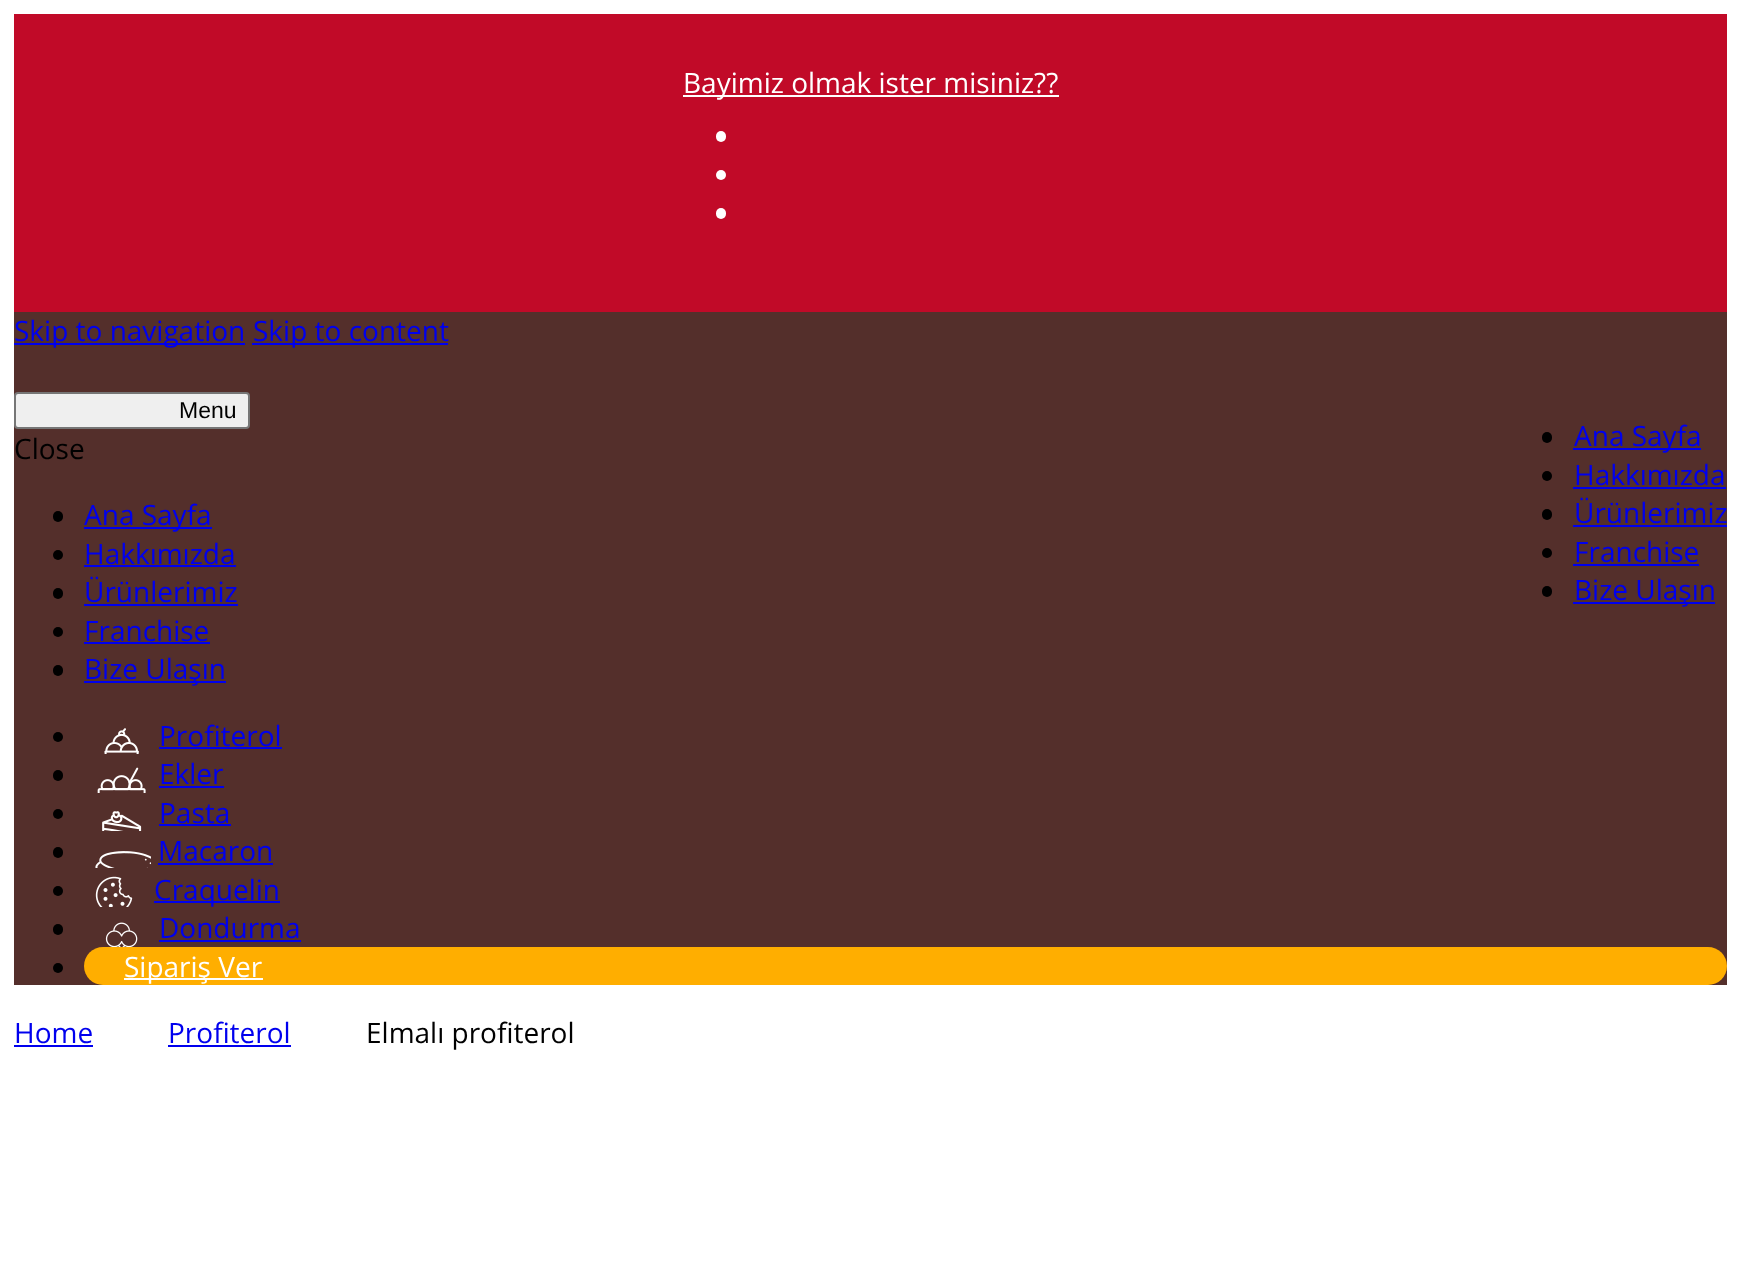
<svg xmlns="http://www.w3.org/2000/svg" width="1740" height="1273">
<rect width="100%" height="100%" fill="#fff"/>
<rect x="14" y="14" width="1713" height="298" fill="#c10a28"/>
<rect x="683" y="95" width="376" height="2" fill="#fff"/>
<text x="683" y="93" style="font-family:Open Sans;font-size:28px;fill:#fff">Bayimiz olmak ister misiniz??</text>
<rect x="716" y="131" width="10" height="11" rx="5" fill="#fff"/>
<circle cx="721" cy="175" r="5" fill="#fff"/>
<rect x="716" y="208" width="10" height="11" rx="5" fill="#fff"/>
<rect x="14" y="312" width="1713" height="673" fill="#542f2b"/>
<rect x="14" y="343" width="231" height="2" fill="#00e"/>
<text x="14" y="341" style="font-family:Open Sans;font-size:28px;fill:#00e">Skip to navigation</text>
<rect x="252" y="343" width="196" height="2" fill="#00e"/>
<text x="253" y="341" style="font-family:Open Sans;font-size:28px;fill:#00e">Skip to content</text>
<rect x="15" y="393" width="234" height="35" rx="3" fill="#efefef" stroke="#767676" stroke-width="2"/>
<text x="179" y="418" style="font-family:Liberation Sans;font-size:23px;fill:#000">Menu</text>
<text x="14" y="459" style="font-family:Open Sans;font-size:28px;fill:#000">Close</text>
<rect x="53" y="511" width="10" height="11" rx="5" fill="#000"/>
<rect x="84" y="527" width="128" height="2" fill="#00e"/>
<text x="84" y="525" style="font-family:Open Sans;font-size:28px;fill:#00e">Ana Sayfa</text>
<circle cx="58" cy="555" r="5" fill="#000"/>
<text x="84" y="564" style="font-family:Open Sans;font-size:28px;fill:#00e">Hakkımızda</text>
<rect x="84" y="565" width="152" height="2" fill="#00e"/>
<rect x="53" y="588" width="10" height="11" rx="5" fill="#000"/>
<text x="84" y="602" style="font-family:Open Sans;font-size:28px;fill:#00e">Ürünlerimiz</text>
<rect x="84" y="604" width="154" height="2" fill="#00e"/>
<circle cx="58" cy="632" r="5" fill="#000"/>
<text x="84" y="641" style="font-family:Open Sans;font-size:28px;fill:#00e">Franchise</text>
<rect x="84" y="642" width="126" height="2" fill="#00e"/>
<rect x="53" y="665" width="10" height="11" rx="5" fill="#000"/>
<rect x="84" y="681" width="142" height="2" fill="#00e"/>
<text x="84" y="679" style="font-family:Open Sans;font-size:28px;fill:#00e">Bize Ulaşın</text>
<rect x="1542" y="432" width="10" height="11" rx="5" fill="#000"/>
<rect x="1573" y="448" width="128" height="2" fill="#00e"/>
<text x="1574" y="446" style="font-family:Open Sans;font-size:28px;fill:#00e">Ana Sayfa</text>
<circle cx="1547" cy="476" r="5" fill="#000"/>
<text x="1574" y="485" style="font-family:Open Sans;font-size:28px;fill:#00e">Hakkımızda</text>
<rect x="1573" y="487" width="153" height="2" fill="#00e"/>
<rect x="1542" y="509" width="10" height="11" rx="5" fill="#000"/>
<text x="1574" y="523" style="font-family:Open Sans;font-size:28px;fill:#00e">Ürünlerimiz</text>
<rect x="1573" y="525" width="154" height="2" fill="#00e"/>
<circle cx="1547" cy="553" r="5" fill="#000"/>
<text x="1574" y="562" style="font-family:Open Sans;font-size:28px;fill:#00e">Franchise</text>
<rect x="1573" y="564" width="126" height="2" fill="#00e"/>
<rect x="1542" y="586" width="10" height="11" rx="5" fill="#000"/>
<rect x="1573" y="602" width="142" height="2" fill="#00e"/>
<text x="1574" y="600" style="font-family:Open Sans;font-size:28px;fill:#00e">Bize Ulaşın</text>
<circle cx="58" cy="737" r="5" fill="#000"/>
<image x="104" y="728" width="35" height="26" href="media/1.png"/>
<text x="159" y="746" style="font-family:Open Sans;font-size:28px;fill:#00e">Profiterol</text>
<rect x="159" y="747" width="123" height="2" fill="#00e"/>
<rect x="53" y="770" width="10" height="11" rx="5" fill="#000"/>
<image x="97" y="767" width="49" height="26" href="media/2.png"/>
<text x="159" y="784" style="font-family:Open Sans;font-size:28px;fill:#00e">Ekler</text>
<rect x="159" y="786" width="65" height="2" fill="#00e"/>
<circle cx="58" cy="814" r="5" fill="#000"/>
<image x="102" y="811" width="40" height="20" href="media/3.png"/>
<text x="159" y="823" style="font-family:Open Sans;font-size:28px;fill:#00e">Pasta</text>
<rect x="159" y="824" width="72" height="2" fill="#00e"/>
<rect x="53" y="847" width="10" height="11" rx="5" fill="#000"/>
<image x="95" y="851" width="56" height="17" href="media/4.png"/>
<text x="158" y="861" style="font-family:Open Sans;font-size:28px;fill:#00e">Macaron</text>
<rect x="158" y="863" width="115" height="2" fill="#00e"/>
<circle cx="58" cy="891" r="5" fill="#000"/>
<image x="95" y="876" width="38" height="31" href="media/5.png"/>
<rect x="154" y="901" width="126" height="2" fill="#00e"/>
<text x="154" y="900" style="font-family:Open Sans;font-size:28px;fill:#00e">Craquelin</text>
<rect x="53" y="924" width="10" height="11" rx="5" fill="#000"/>
<image x="105" y="922" width="33" height="25" href="media/6.png"/>
<text x="159" y="938" style="font-family:Open Sans;font-size:28px;fill:#00e">Dondurma</text>
<rect x="159" y="940" width="142" height="2" fill="#00e"/>
<rect x="84" y="947" width="1643" height="38" rx="19" fill="#ffae00"/>
<circle cx="58" cy="968" r="5" fill="#000"/>
<rect x="124" y="978" width="139" height="2" fill="#fff"/>
<text x="124" y="977" style="font-family:Open Sans;font-size:28px;fill:#fff">Sipariş Ver</text>
<text x="14" y="1043" style="font-family:Open Sans;font-size:28px;fill:#00e">Home</text>
<rect x="14" y="1045" width="79" height="2" fill="#00e"/>
<text x="168" y="1043" style="font-family:Open Sans;font-size:28px;fill:#00e">Profiterol</text>
<rect x="168" y="1045" width="123" height="2" fill="#00e"/>
<text x="366" y="1043" style="font-family:Open Sans;font-size:28px;fill:#000">Elmalı profiterol</text>
</svg>
